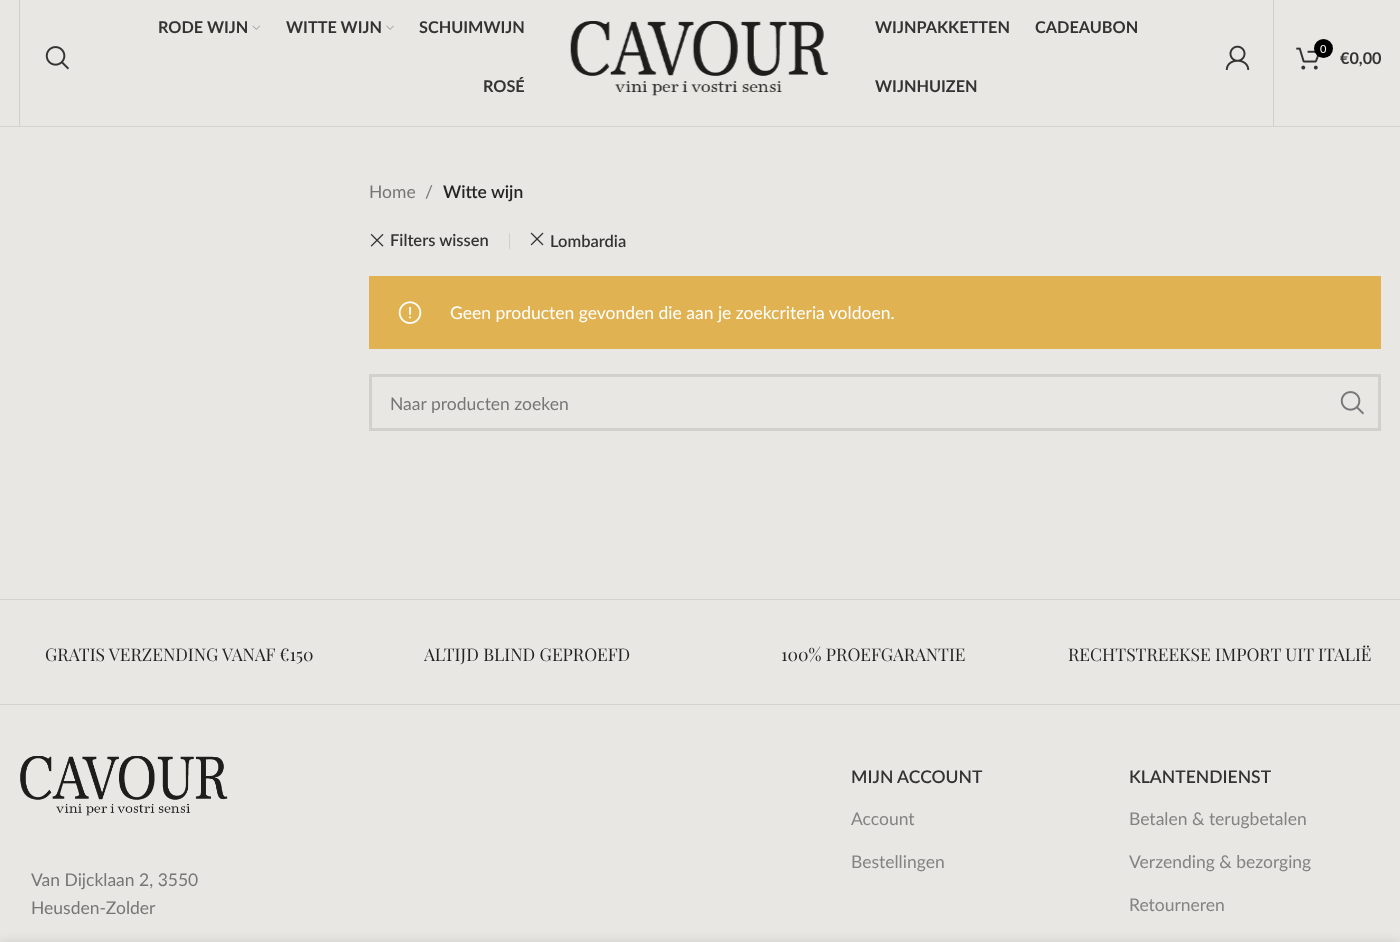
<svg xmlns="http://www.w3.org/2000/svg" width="1400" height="942">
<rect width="100%" height="100%" fill="#e8e7e4"/>
<rect y="126" width="1400" height="1" fill="#d3d3d0"/>
<rect x="19" width="1" height="126" fill="#cfcfcc"/>
<image x="45" y="46" width="24" height="24" href="media/1.png"/>
<text x="158" y="33" style="font-family:Lato;font-size:16.25px;font-weight:bold;fill:#333">RODE WIJN</text>
<image x="252" y="25" width="8" height="5" href="media/2.png"/>
<text x="286" y="33" style="font-family:Lato;font-size:16.25px;font-weight:bold;fill:#333">WITTE WIJN</text>
<image x="386" y="25" width="8" height="5" href="media/3.png"/>
<text x="419" y="33" style="font-family:Lato;font-size:16.25px;font-weight:bold;fill:#333">SCHUIMWIJN</text>
<text x="483" y="92" style="font-family:Lato;font-size:16.25px;font-weight:bold;fill:#333">ROSÉ</text>
<image x="570" y="21" width="259" height="75" href="media/4.png"/>
<text x="875" y="33" style="font-family:Lato;font-size:16.25px;font-weight:bold;fill:#333">WIJNPAKKETTEN</text>
<text x="1035" y="33" style="font-family:Lato;font-size:16.25px;font-weight:bold;fill:#333">CADEAUBON</text>
<text x="875" y="92" style="font-family:Lato;font-size:16.25px;font-weight:bold;fill:#333">WIJNHUIZEN</text>
<image x="1225" y="45" width="25" height="25" href="media/5.png"/>
<rect x="1273" width="1" height="126" fill="#cfcfcc"/>
<image x="1296" y="47" width="23" height="23" href="media/6.png"/>
<circle cx="1323.5" cy="48.5" r="9.5" fill="#000"/>
<text x="1320" y="53" style="font-family:Lato;font-size:11px;fill:#fff">0</text>
<text x="1340" y="64" style="font-family:Lato;font-size:16.25px;font-weight:bold;fill:#333">€0,00</text>
<text x="369" y="198" style="font-family:Lato;font-size:17.5px;fill:#767676">Home</text>
<text x="425" y="198" style="font-family:Lato;font-size:17.5px;fill:#767676">/</text>
<text x="443" y="198" style="font-family:Lato;font-size:17.5px;font-weight:600;fill:#242424">Witte wijn</text>
<rect x="509" y="233" width="1" height="16" fill="#cfcfcc"/>
<image x="370" y="233" width="14" height="14" href="media/7.png"/>
<text x="390" y="246" style="font-family:Lato;font-size:16.5px;font-weight:600;fill:#333">Filters wissen</text>
<image x="530" y="232" width="14" height="14" href="media/8.png"/>
<text x="550" y="247" style="font-family:Lato;font-size:16.5px;font-weight:600;fill:#333">Lombardia</text>
<rect x="369" y="276" width="1012" height="73" fill="#e0b252"/>
<image x="398" y="301" width="24" height="23" href="media/9.png"/>
<text x="450" y="319" style="font-family:Lato;font-size:17.5px;fill:#fff">Geen producten gevonden die aan je zoekcriteria voldoen.</text>
<rect x="370.5" y="375.5" width="1009" height="54" fill="none" stroke="#d1d0cd" stroke-width="3"/>
<text x="390" y="410" style="font-family:Lato;font-size:17.5px;fill:#767676">Naar producten zoeken</text>
<image x="1340" y="391" width="24" height="24" href="media/10.png"/>
<rect y="599" width="1400" height="1" fill="#d3d3d0"/>
<rect y="704" width="1400" height="1" fill="#d3d3d0"/>
<text x="45" y="661" style="font-family:Playfair Display;font-size:17.5px;fill:#242424">GRATIS VERZENDING VANAF €150</text>
<text x="424" y="661" style="font-family:Playfair Display;font-size:17.5px;fill:#242424">ALTIJD BLIND GEPROEFD</text>
<text x="781" y="661" style="font-family:Playfair Display;font-size:17.5px;fill:#242424">100% PROEFGARANTIE</text>
<text x="1068" y="661" style="font-family:Playfair Display;font-size:17.5px;fill:#242424">RECHTSTREEKSE IMPORT UIT ITALIË</text>
<image x="20" y="756" width="208" height="60" href="media/11.png"/>
<text x="31" y="886" style="font-family:Lato;font-size:17.5px;fill:#767676">Van Dijcklaan 2, 3550</text>
<text x="31" y="914" style="font-family:Lato;font-size:17.5px;fill:#767676">Heusden-Zolder</text>
<text x="851" y="783" style="font-family:Lato;font-size:17.5px;font-weight:600;fill:#333">MIJN ACCOUNT</text>
<text x="851" y="825" style="font-family:Lato;font-size:17.5px;fill:#838383">Account</text>
<text x="851" y="868" style="font-family:Lato;font-size:17.5px;fill:#838383">Bestellingen</text>
<text x="1129" y="783" style="font-family:Lato;font-size:17.5px;font-weight:600;fill:#333">KLANTENDIENST</text>
<text x="1129" y="825" style="font-family:Lato;font-size:17.5px;fill:#838383">Betalen &amp; terugbetalen</text>
<text x="1129" y="868" style="font-family:Lato;font-size:17.5px;fill:#838383">Verzending &amp; bezorging</text>
<text x="1129" y="911" style="font-family:Lato;font-size:17.5px;fill:#838383">Retourneren</text>
<rect y="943" width="1400" height="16" fill="#00000024" filter="blur(5.5px)"/>
</svg>
